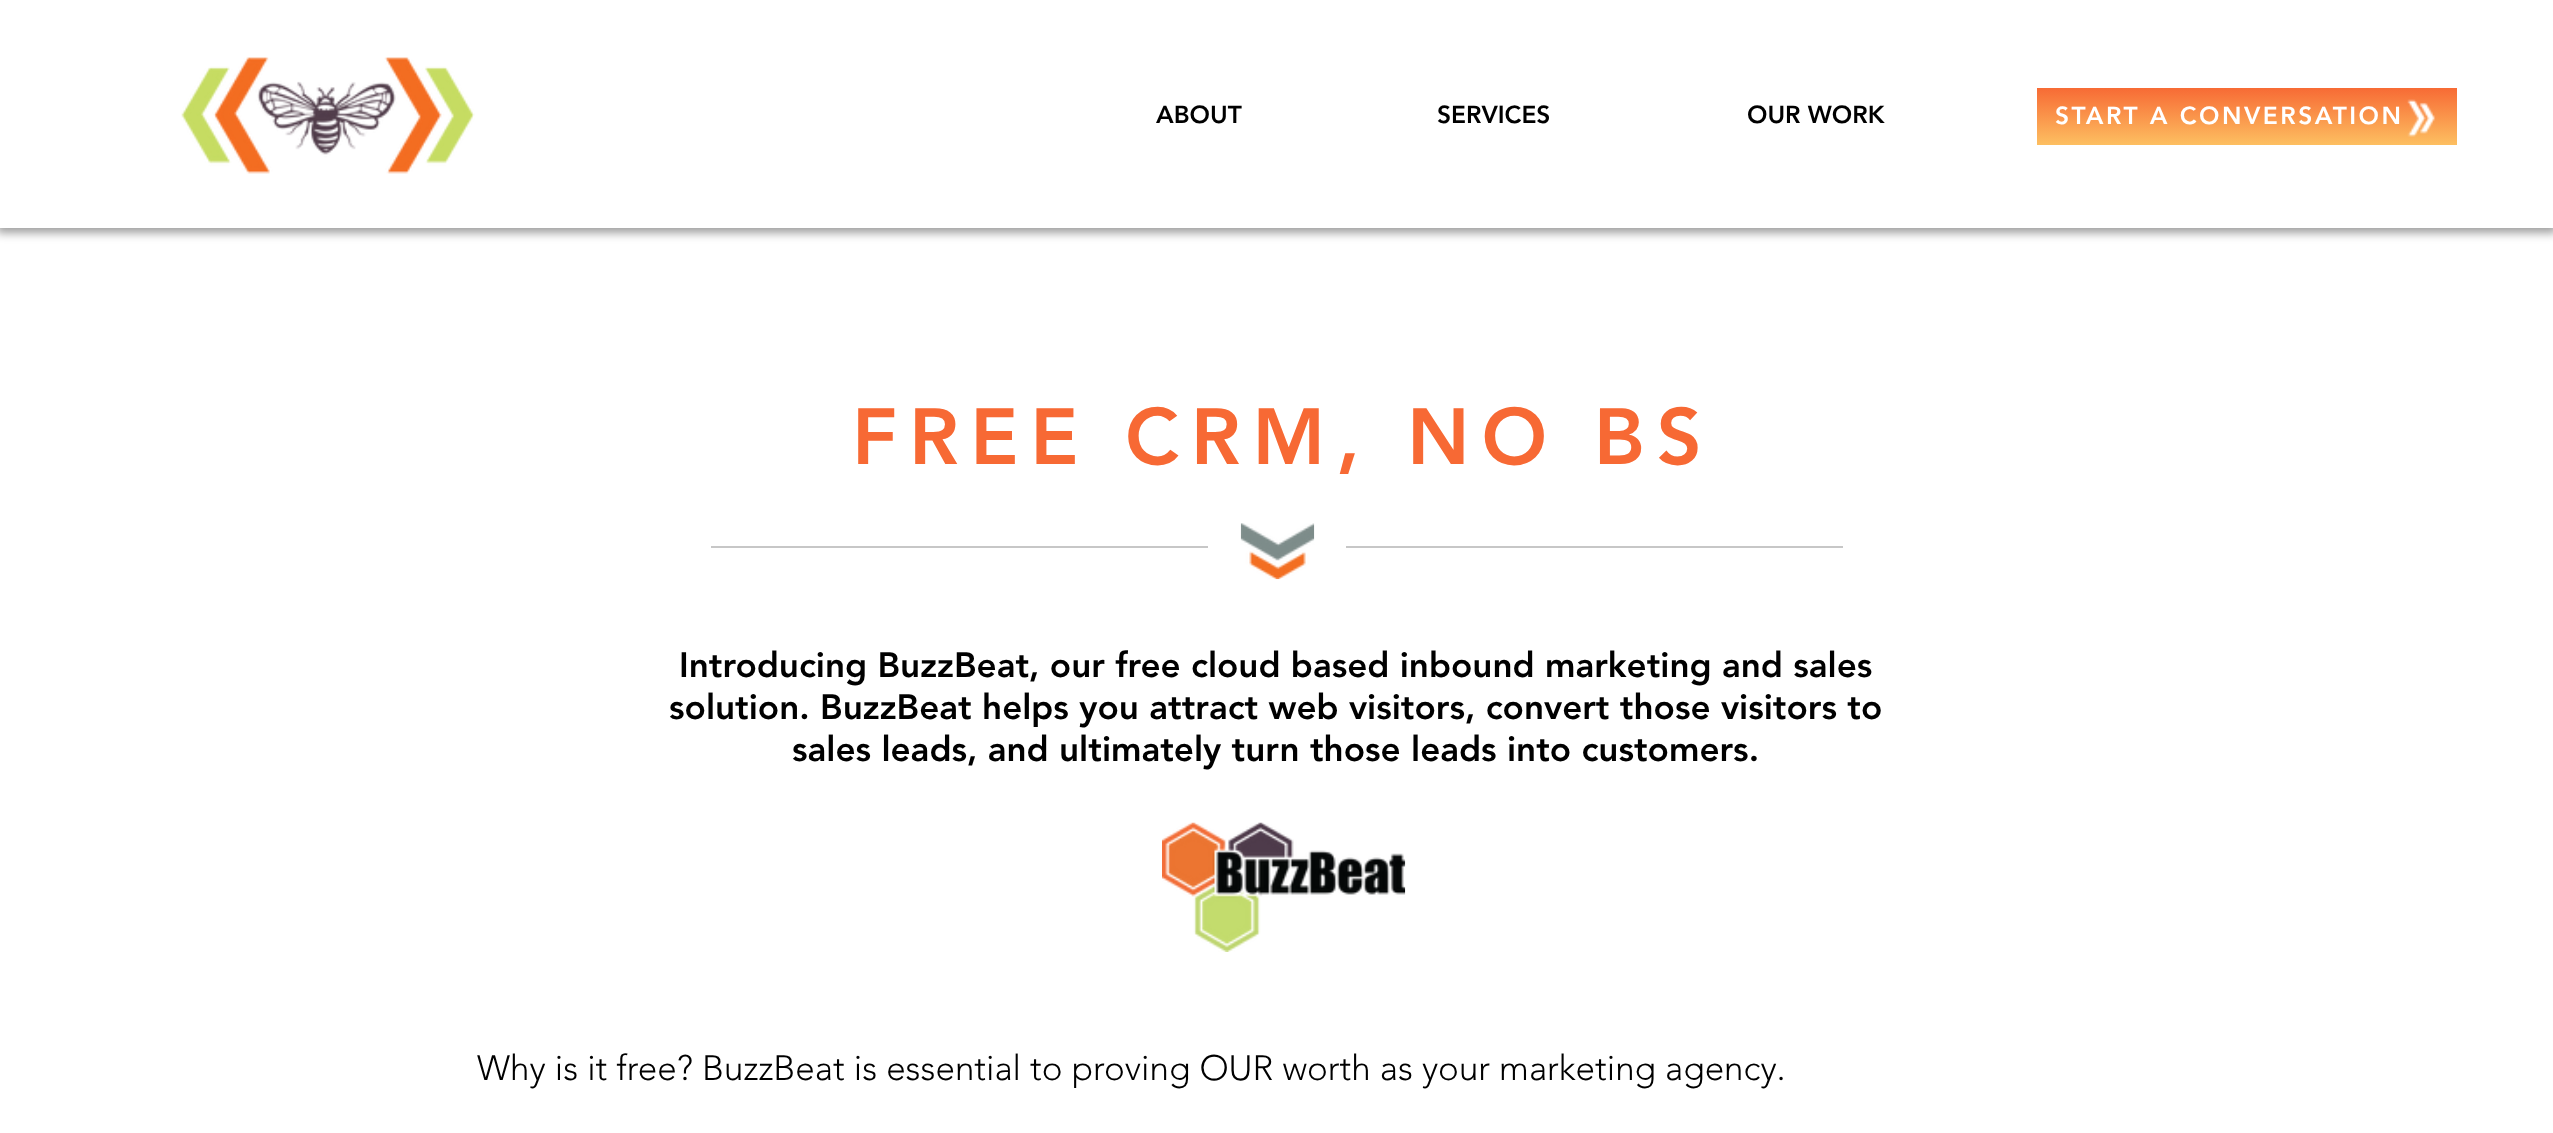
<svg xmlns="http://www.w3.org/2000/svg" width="2553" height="1133">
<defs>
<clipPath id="clip1"><path d="M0 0h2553v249h-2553zm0 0h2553v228h-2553z" clip-rule="evenodd"/></clipPath>
<linearGradient id="g1" gradientUnits="userSpaceOnUse" x1="2247" y1="87" x2="2247" y2="145"><stop offset="0" stop-color="#f76934"/><stop offset="1" stop-color="#fdbf61"/></linearGradient>
</defs>
<rect width="100%" height="100%" fill="#fff"/>
<g clip-path="url(#clip1)">
<rect x="-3" y="-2" width="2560" height="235" fill="#00000061" filter="blur(5px)"/>
</g>
<image x="181" y="57" width="294" height="117" href="media/1.png"/>
<text x="1156" y="123" style="font-family:'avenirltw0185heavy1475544';font-size:24.5px;font-weight:900;fill:#000">ABOUT</text>
<text x="1437" y="123" style="font-family:'avenirltw0185heavy1475544';font-size:24.5px;font-weight:900;fill:#000">SERVICES</text>
<text x="1747" y="123" style="font-family:'avenirltw0185heavy1475544';font-size:24.5px;font-weight:900;fill:#000">OUR WORK</text>
<rect x="2037" y="88" width="420" height="57" fill="url(#g1)"/>
<text x="2055" y="124" style="font-family:'avenirltw0185heavy1475544';font-size:24.5px;font-weight:900;letter-spacing:2.5px;fill:#fff">START A CONVERSATION</text>
<image x="2407" y="99" width="28" height="38" href="media/2.png"/>
<rect y="227" width="2553" height="1" fill="#ffffffe6"/>
<text x="852" y="464" style="font-family:'avenirltw0185heavy1475544';font-size:78.75px;font-weight:900;letter-spacing:11.75px;fill:#f76934">FREE CRM, NO BS</text>
<rect x="711" y="546" width="497" height="2" fill="#c7c7c7"/>
<image x="1240" y="523" width="75" height="57" href="media/3.png"/>
<rect x="1346" y="546" width="497" height="2" fill="#c7c7c7"/>
<text x="679" y="677" style="font-family:'avenirltw0185heavy1475544';font-size:35px;font-weight:900;fill:#000">Introducing BuzzBeat, our free cloud based inbound marketing and sales</text>
<text x="669" y="719" style="font-family:'avenirltw0185heavy1475544';font-size:35px;font-weight:900;fill:#000">solution. BuzzBeat helps you attract web visitors, convert those visitors to</text>
<text x="792" y="761" style="font-family:'avenirltw0185heavy1475544';font-size:35px;font-weight:900;fill:#000">sales leads, and ultimately turn those leads into customers.</text>
<image x="1162" y="822" width="244" height="130" href="media/4.png"/>
<text x="477" y="1080" style="font-family:'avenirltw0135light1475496';font-size:35px;font-weight:300;fill:#000">Why is it free? BuzzBeat is essential to proving OUR worth as your marketing agency.</text>
</svg>
